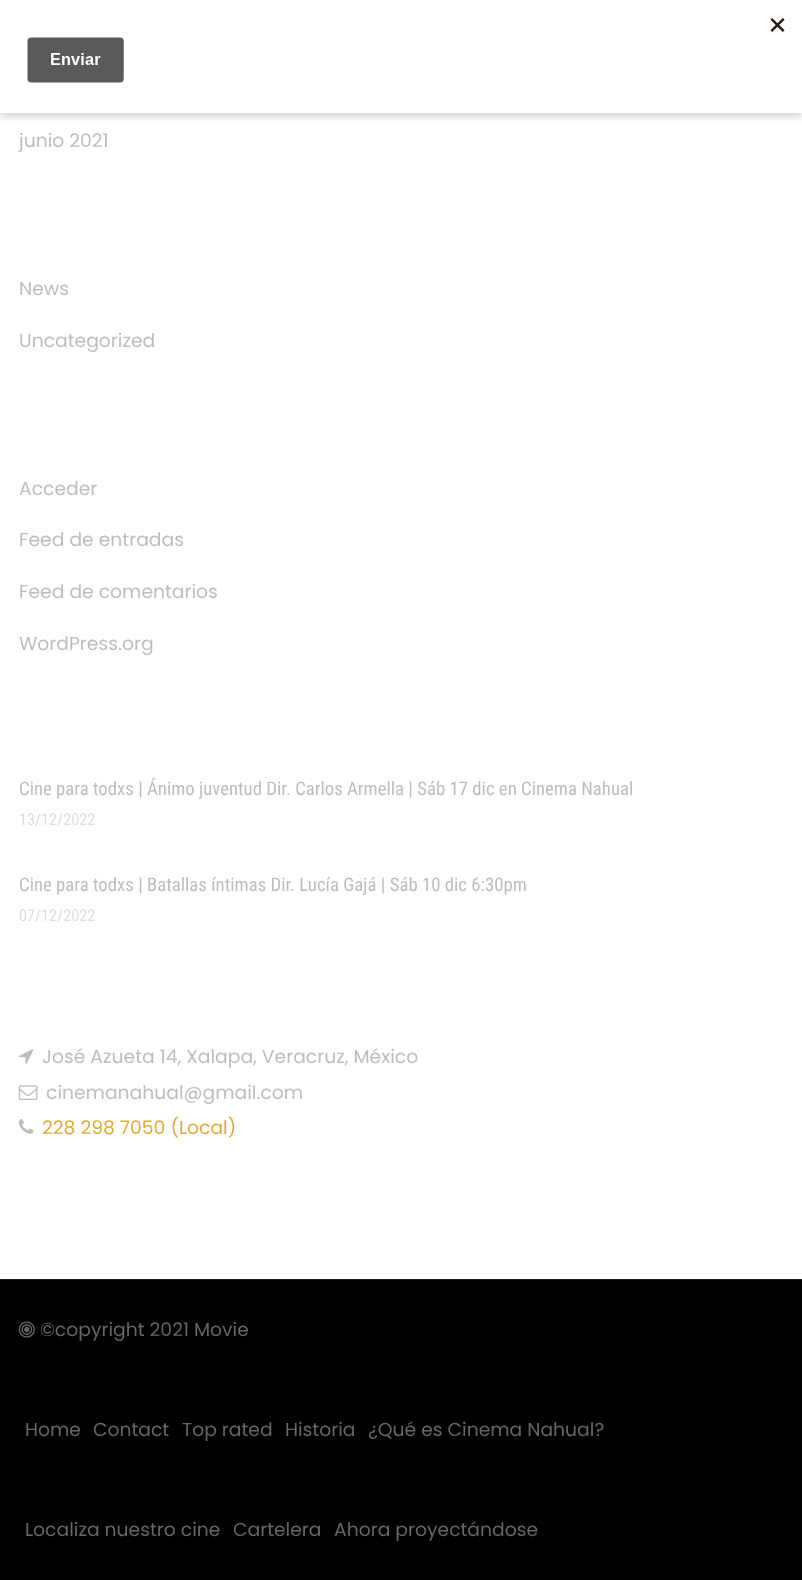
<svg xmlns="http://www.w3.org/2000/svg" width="802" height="1580">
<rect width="100%" height="100%" fill="#fff"/>
<rect y="4" width="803" height="112" fill="#00000033" filter="blur(4px)"/>
<rect width="802" height="113" fill="#fff"/>
<image x="27" y="18" width="758" height="65" href="media/1.png"/>
<text x="19" y="147" style="font-family:Poppins;font-size:18.75px;fill:#bdbdbd">junio 2021</text>
<text x="19" y="295" style="font-family:Poppins;font-size:18.75px;fill:#bdbdbd">News</text>
<text x="19" y="347" style="font-family:Poppins;font-size:18.75px;fill:#bdbdbd">Uncategorized</text>
<text x="19" y="495" style="font-family:Poppins;font-size:18.75px;fill:#bdbdbd">Acceder</text>
<text x="19" y="546" style="font-family:Poppins;font-size:18.75px;fill:#bdbdbd">Feed de entradas</text>
<text x="19" y="598" style="font-family:Poppins;font-size:18.75px;fill:#bdbdbd">Feed de comentarios</text>
<text x="19" y="650" style="font-family:Poppins;font-size:18.75px;fill:#bdbdbd">WordPress.org</text>
<text x="19" y="795" style="font-family:Roboto Condensed;font-size:18.75px;fill:#bdbdbd">Cine para todxs | Ánimo juventud Dir. Carlos Armella | Sáb 17 dic en Cinema Nahual</text>
<text x="19" y="825" style="font-family:Roboto Condensed;font-size:16.25px;fill:#ddd">13/12/2022</text>
<text x="19" y="891" style="font-family:Roboto Condensed;font-size:18.75px;fill:#bdbdbd">Cine para todxs | Batallas íntimas Dir. Lucía Gajá | Sáb 10 dic 6:30pm</text>
<text x="19" y="921" style="font-family:Roboto Condensed;font-size:16.25px;fill:#ddd">07/12/2022</text>
<image x="18" y="1049" width="16" height="15" href="media/2.png"/>
<text x="42" y="1063" style="font-family:Poppins;font-size:18.75px;fill:#bdbdbd">José Azueta 14, Xalapa, Veracruz, México</text>
<image x="18" y="1085" width="20" height="16" href="media/3.png"/>
<text x="46" y="1099" style="font-family:Poppins;font-size:18.75px;fill:#bdbdbd">cinemanahual@gmail.com</text>
<image x="18" y="1119" width="16" height="15" href="media/4.png"/>
<text x="42" y="1134" style="font-family:Poppins;font-size:18.75px;fill:#e5aa34">228 298 7050 (Local)</text>
<rect y="1280" width="802" height="300" fill="#000"/>
<rect y="1279" width="802" height="1" fill="#1a1a1a"/>
<image x="18" y="1321" width="17" height="17" href="media/5.png"/>
<text x="40" y="1336" style="font-family:Poppins;font-size:18.75px;fill:#666">©copyright 2021 Movie</text>
<text x="25" y="1436" style="font-family:Poppins;font-size:18.75px;fill:#666">Home</text>
<text x="93" y="1436" style="font-family:Poppins;font-size:18.75px;fill:#666">Contact</text>
<text x="182" y="1436" style="font-family:Poppins;font-size:18.75px;fill:#666">Top rated</text>
<text x="285" y="1436" style="font-family:Poppins;font-size:18.75px;fill:#666">Historia</text>
<text x="368" y="1436" style="font-family:Poppins;font-size:18.75px;fill:#666">¿Qué es Cinema Nahual?</text>
<text x="25" y="1536" style="font-family:Poppins;font-size:18.75px;fill:#666">Localiza nuestro cine</text>
<text x="233" y="1536" style="font-family:Poppins;font-size:18.75px;fill:#666">Cartelera</text>
<text x="334" y="1536" style="font-family:Poppins;font-size:18.75px;fill:#666">Ahora proyectándose</text>
</svg>
